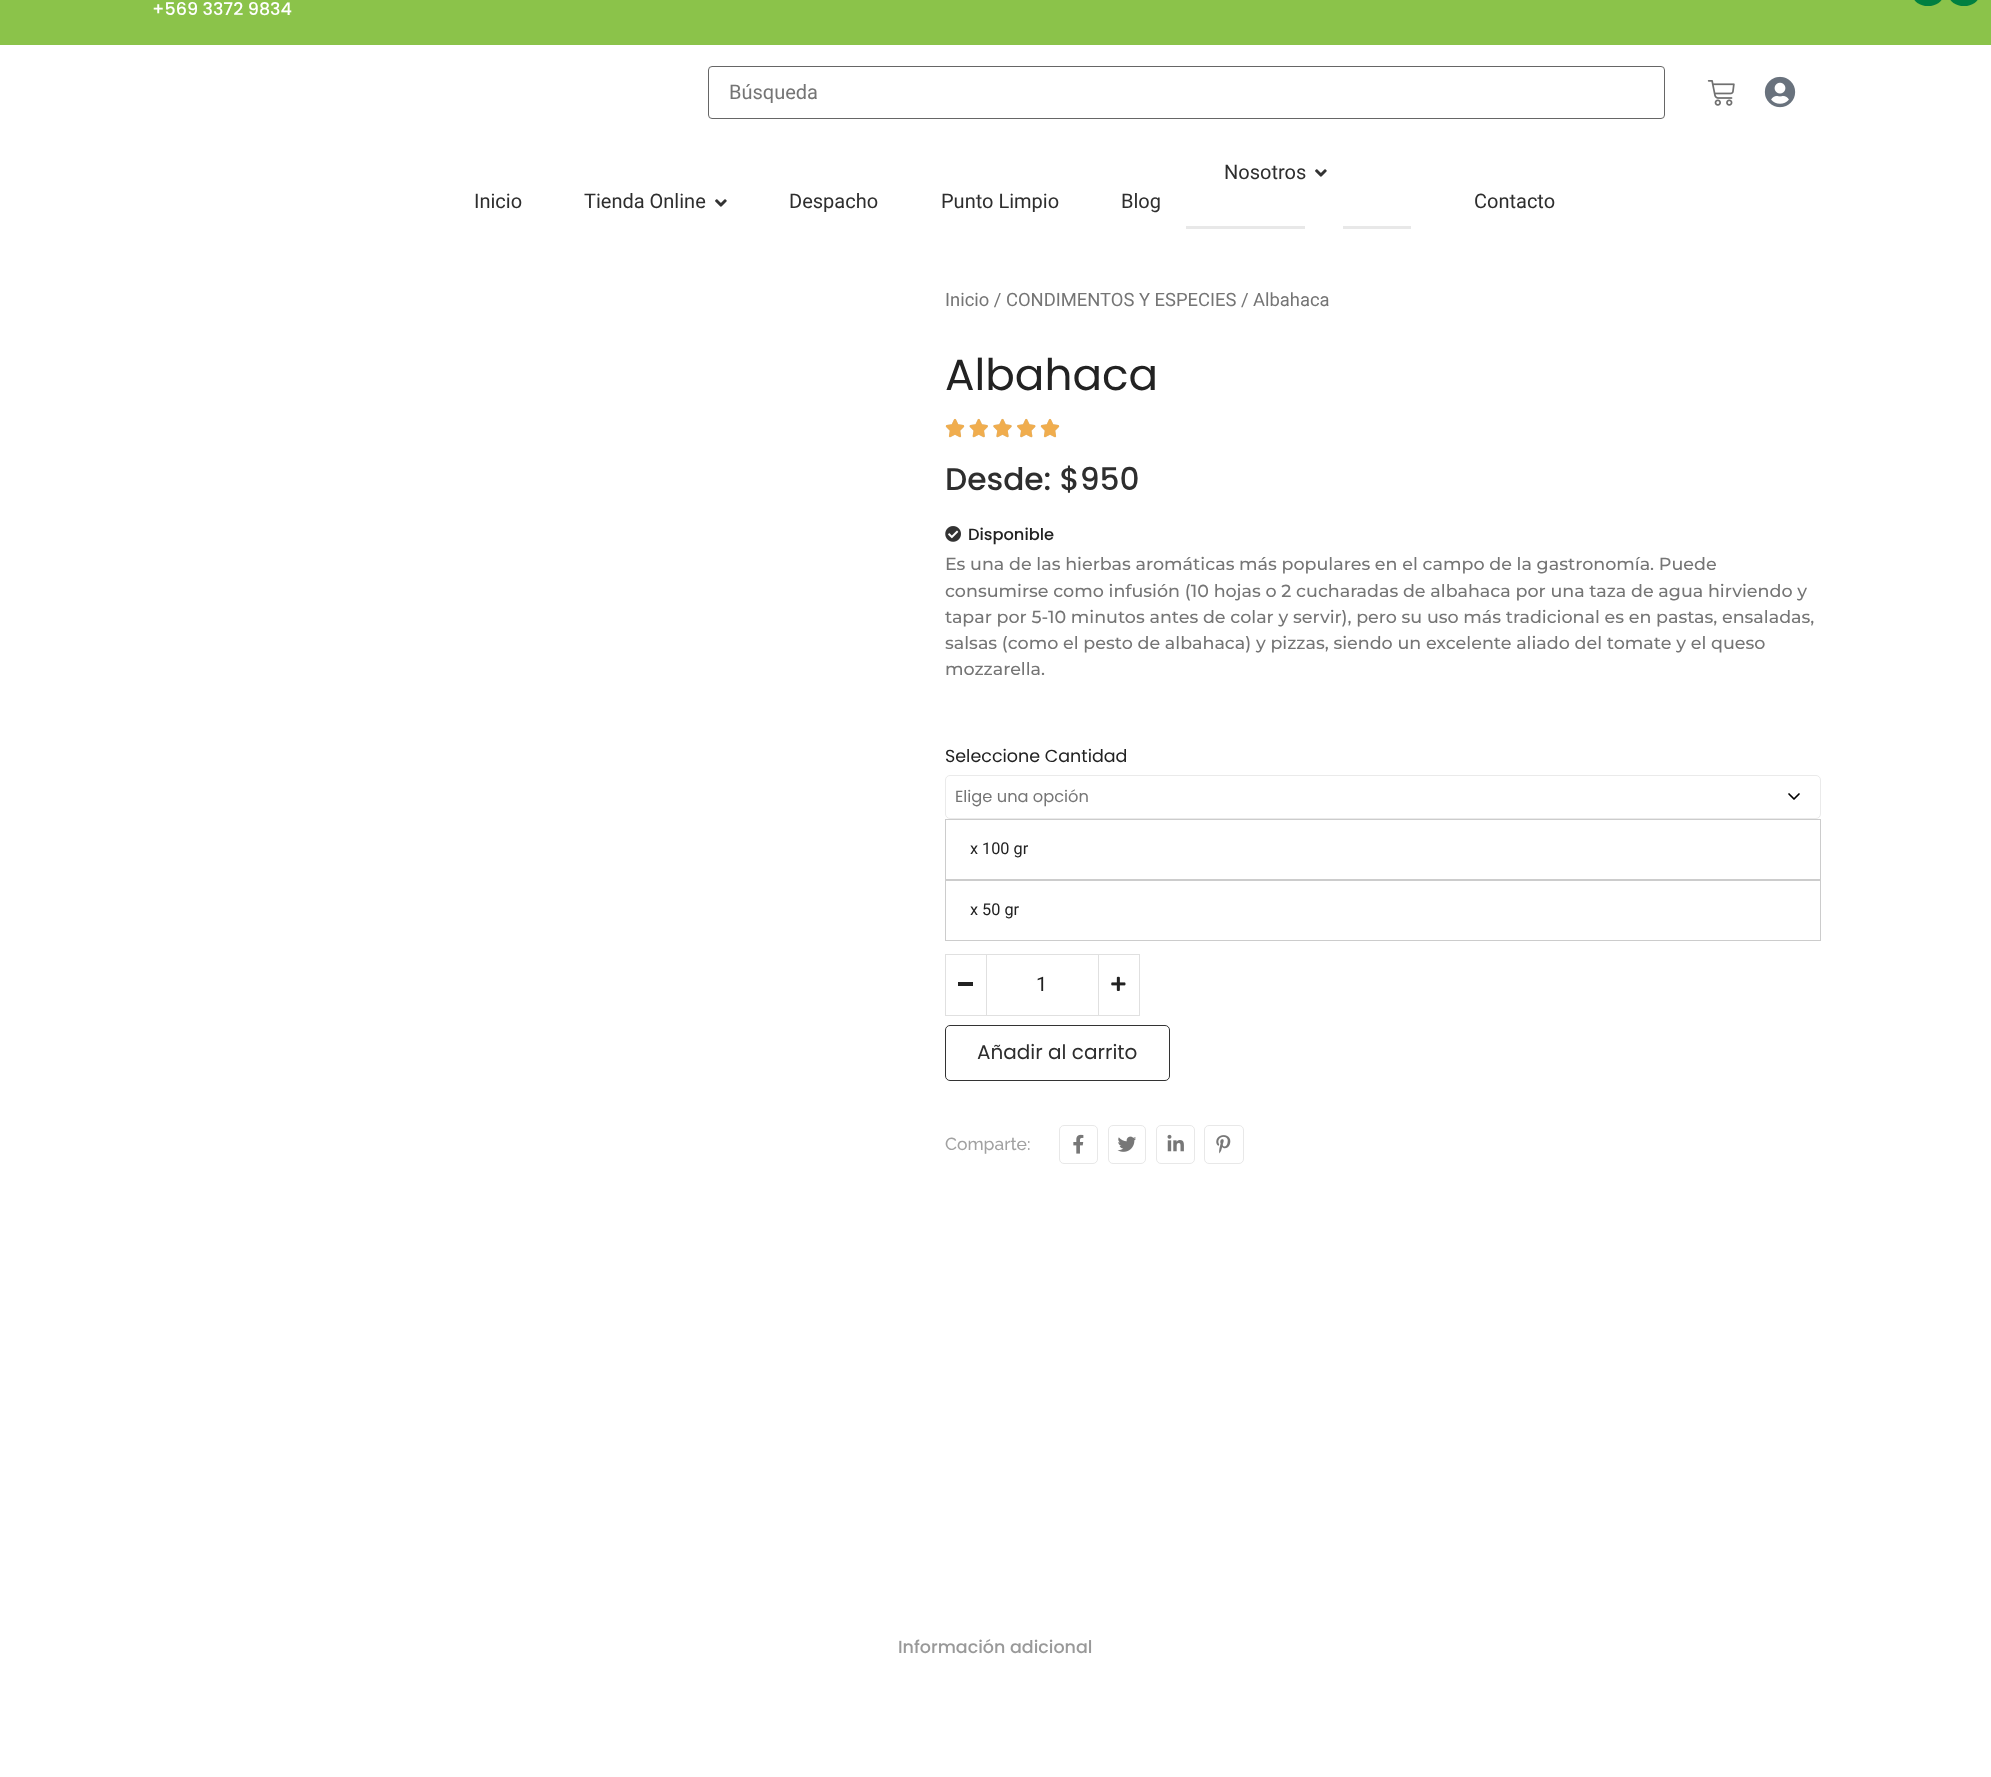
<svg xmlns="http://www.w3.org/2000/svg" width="1991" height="1777">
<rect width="100%" height="100%" fill="#fff"/>
<rect width="1991" height="45" fill="#8bc34a"/>
<rect x="1913" y="-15" width="30" height="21" rx="15" fill="#008041"/>
<rect x="1949" y="-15" width="30" height="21" rx="15" fill="#008041"/>
<text x="152" y="15" style="font-family:Poppins;font-size:17.5px;font-weight:500;fill:#fff">+569 3372 9834</text>
<rect x="708.5" y="66.5" width="956" height="52" rx="3.5" fill="none" stroke="#666"/>
<text x="729" y="99" style="font-family:Roboto;font-size:20px;fill:#757575">Búsqueda</text>
<image x="1707" y="80" width="28" height="26" href="media/1.png"/>
<image x="1764" y="76" width="32" height="32" href="media/2.png"/>
<text x="1224" y="179" style="font-family:Roboto;font-size:20px;fill:#2e2e2e">Nosotros</text>
<image x="1315" y="169" width="12" height="8" href="media/3.png"/>
<rect x="1186" y="226" width="225" height="3" fill="#e8e8e8"/>
<rect x="1305" y="226" width="38" height="3" fill="#fff"/>
<text x="474" y="208" style="font-family:Roboto;font-size:20px;fill:#2e2e2e">Inicio</text>
<text x="584" y="208" style="font-family:Roboto;font-size:20px;fill:#2e2e2e">Tienda Online</text>
<image x="715" y="199" width="12" height="8" href="media/3.png"/>
<text x="789" y="208" style="font-family:Roboto;font-size:20px;fill:#2e2e2e">Despacho</text>
<text x="941" y="208" style="font-family:Roboto;font-size:20px;fill:#2e2e2e">Punto Limpio</text>
<text x="1121" y="208" style="font-family:Roboto;font-size:20px;fill:#2e2e2e">Blog</text>
<text x="1474" y="208" style="font-family:Roboto;font-size:20px;fill:#2e2e2e">Contacto</text>
<text x="945" y="306" style="font-family:Roboto;font-size:18.4px;fill:#757575">Inicio / CONDIMENTOS Y ESPECIES / Albahaca</text>
<text x="945" y="390" style="font-family:Poppins;font-size:43.75px;fill:#222">Albahaca</text>
<image x="945" y="419" width="20" height="19" href="media/5.png"/>
<image x="945" y="418" width="20" height="20" href="media/4.png"/>
<image x="969" y="419" width="19" height="19" href="media/7.png"/>
<image x="969" y="418" width="19" height="20" href="media/6.png"/>
<image x="993" y="419" width="19" height="19" href="media/9.png"/>
<image x="993" y="418" width="19" height="20" href="media/8.png"/>
<image x="1017" y="419" width="19" height="19" href="media/11.png"/>
<image x="1017" y="418" width="19" height="20" href="media/10.png"/>
<image x="1040" y="419" width="20" height="19" href="media/5.png"/>
<image x="1040" y="418" width="20" height="20" href="media/4.png"/>
<text x="945" y="490" style="font-family:Poppins;font-size:31.25px;font-weight:500;fill:#2e2e2e">Desde: $950</text>
<image x="945" y="526" width="16" height="16" href="media/12.png"/>
<text x="968" y="540" style="font-family:Poppins;font-size:16.25px;font-weight:500;fill:#222">Disponible</text>
<text x="945" y="570" style="font-family:Montserrat;font-size:17.5px;font-weight:500;fill:#757575">Es una de las hierbas aromáticas más populares en el campo de la gastronomía. Puede</text>
<text x="945" y="597" style="font-family:Montserrat;font-size:17.5px;font-weight:500;fill:#757575">consumirse como infusión (10 hojas o 2 cucharadas de albahaca por una taza de agua hirviendo y</text>
<text x="945" y="623" style="font-family:Montserrat;font-size:17.5px;font-weight:500;fill:#757575">tapar por 5-10 minutos antes de colar y servir), pero su uso más tradicional es en pastas, ensaladas,</text>
<text x="945" y="649" style="font-family:Montserrat;font-size:17.5px;font-weight:500;fill:#757575">salsas (como el pesto de albahaca) y pizzas, siendo un excelente aliado del tomate y el queso</text>
<text x="945" y="675" style="font-family:Montserrat;font-size:17.5px;font-weight:500;fill:#757575">mozzarella.</text>
<text x="945" y="762" style="font-family:Poppins;font-size:17.5px;fill:#222">Seleccione Cantidad</text>
<path d="M1789 794l5 5l5-5" fill="none" stroke="#000" stroke-width="1.7" stroke-linecap="round" stroke-linejoin="round"/>
<rect x="945.5" y="775.5" width="875" height="43" rx="4.5" fill="none" stroke="#eaeaea"/>
<text x="955" y="802" style="font-family:Poppins;font-size:16.25px;fill:#757575">Elige una opción</text>
<rect x="945.5" y="819.5" width="875" height="60" fill="none" stroke="#ccc"/>
<text x="970" y="854" style="font-family:Roboto;font-size:16.25px;fill:#222">x 100 gr</text>
<rect x="945.5" y="880.5" width="875" height="60" fill="none" stroke="#ccc"/>
<text x="970" y="915" style="font-family:Roboto;font-size:16.25px;fill:#222">x 50 gr</text>
<rect x="945" y="954" width="41" height="1" fill="#e0e0e0"/>
<rect x="945" y="1015" width="41" height="1" fill="#e0e0e0"/>
<rect x="945" y="954" width="1" height="62" fill="#e0e0e0"/>
<rect x="958" y="982" width="15" height="4" fill="#222"/>
<rect x="986.5" y="954.5" width="112" height="61" fill="none" stroke="#e0e0e0"/>
<text x="1036" y="991" style="font-family:Roboto;font-size:20px;fill:#222">1</text>
<rect x="1099" y="954" width="41" height="1" fill="#e0e0e0"/>
<rect x="1139" y="954" width="1" height="62" fill="#e0e0e0"/>
<rect x="1099" y="1015" width="41" height="1" fill="#e0e0e0"/>
<image x="1111" y="976" width="15" height="15" href="media/13.png"/>
<rect x="945.5" y="1025.5" width="224" height="55" rx="4.5" fill="none" stroke="#333"/>
<text x="977" y="1059" style="font-family:Poppins;font-size:20px;fill:#2e2e2e">Añadir al carrito</text>
<text x="945" y="1150" style="font-family:Raleway;font-size:17.5px;font-weight:500;fill:#a1a1a1">Comparte:</text>
<rect x="1059.5" y="1125.5" width="38" height="38" rx="4.5" fill="none" stroke="#e8e8e8"/>
<image x="1073" y="1134" width="11" height="20" href="media/14.png"/>
<rect x="1108.5" y="1125.5" width="37" height="38" rx="4.5" fill="none" stroke="#e8e8e8"/>
<image x="1117" y="1136" width="19" height="16" href="media/15.png"/>
<rect x="1156.5" y="1125.5" width="38" height="38" rx="4.5" fill="none" stroke="#e8e8e8"/>
<image x="1167" y="1134" width="17" height="18" href="media/16.png"/>
<rect x="1204.5" y="1125.5" width="39" height="38" rx="4.5" fill="none" stroke="#e8e8e8"/>
<image x="1216" y="1135" width="15" height="19" href="media/17.png"/>
<text x="898" y="1653" style="font-family:Poppins;font-size:17.5px;font-weight:500;fill:#999">Información adicional</text>
</svg>
